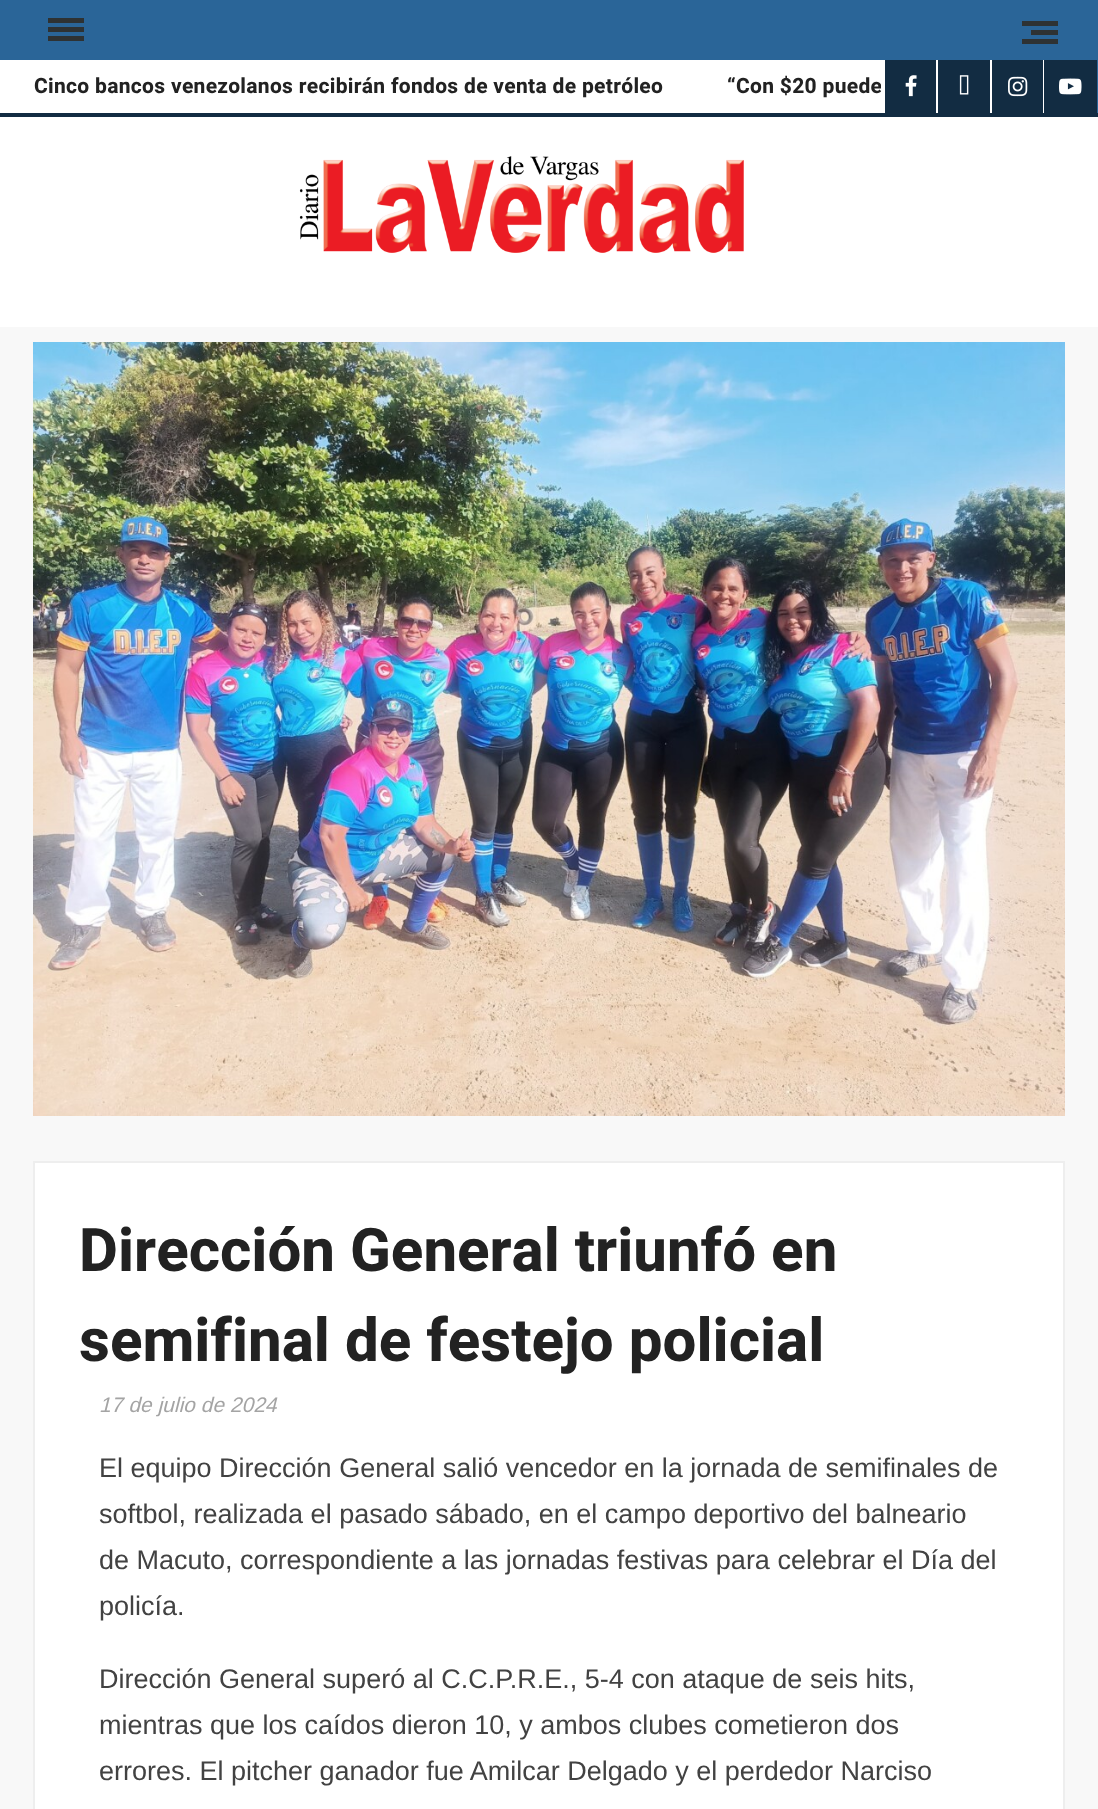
<svg xmlns="http://www.w3.org/2000/svg" width="1098" height="1809">
<defs>
<clipPath id="clip1"><rect y="60" width="881" height="53"/></clipPath>
</defs>
<rect width="100%" height="100%" fill="#f8f8f8"/>
<rect width="1098" height="60" fill="#2a6598"/>
<rect x="48" y="27" width="36" height="5" fill="#2e3233"/>
<rect x="48" y="18" width="36" height="5" fill="#2e3233"/>
<rect x="48" y="36" width="36" height="5" fill="#2e3233"/>
<rect x="1031" y="30" width="27" height="5" fill="#2e3233"/>
<rect x="1022" y="21" width="36" height="5" fill="#2e3233"/>
<rect x="1022" y="39" width="36" height="5" fill="#2e3233"/>
<rect y="60" width="885" height="53" fill="#fff"/>
<text x="34" y="93" style="font-family:Heebo;font-size:21px;font-weight:bold;letter-spacing:0.3px;fill:#222">Cinco bancos venezolanos recibirán fondos de venta de petróleo</text>
<g clip-path="url(#clip1)">
<text x="727" y="93" style="font-family:Heebo;font-size:21px;font-weight:bold;letter-spacing:0.3px;fill:#222">“Con $20 puede</text>
</g>
<rect x="1097" y="60" width="1" height="53" fill="#2a6598"/>
<rect x="885" y="60" width="51" height="53" fill="#122c42"/>
<image x="905" y="75" width="12" height="22" href="media/1.png"/>
<rect x="936" y="60" width="2" height="53" fill="#fff"/>
<rect x="938" y="60" width="52" height="53" fill="#122c42"/>
<image x="959" y="75" width="10" height="20" href="media/2.png"/>
<rect x="990" y="60" width="2" height="53" fill="#fff"/>
<rect x="992" y="60" width="51" height="53" fill="#122c42"/>
<image x="1008" y="76" width="20" height="21" href="media/3.png"/>
<rect x="1043" y="60" width="1" height="53" fill="#fff"/>
<rect x="1044" y="60" width="53" height="53" fill="#122c42"/>
<image x="1059" y="78" width="23" height="17" href="media/4.png"/>
<rect y="113" width="1098" height="4" fill="#122c42"/>
<rect y="117" width="1098" height="210" fill="#fff"/>
<image x="299" y="156" width="445" height="97" href="media/5.png"/>
<image x="33" y="342" width="1032" height="774" href="media/6.png"/>
<rect x="34" y="1162" width="1030" height="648" fill="#fff" stroke="#eee" stroke-width="2"/>
<text x="79" y="1271" style="font-family:Heebo;font-size:60px;font-weight:bold;fill:#222">Dirección General triunfó en</text>
<text x="79" y="1361" style="font-family:Heebo;font-size:60px;font-weight:bold;fill:#222">semifinal de festejo policial</text>
<text x="99" y="1412" style="font-family:Arimo;font-size:21px;font-style:italic;fill:#a4a4a4">17 de julio de 2024</text>
<text x="99" y="1477" style="font-family:Arimo;font-size:27px;fill:#424242">El equipo Dirección General salió vencedor en la jornada de semifinales de</text>
<text x="99" y="1523" style="font-family:Arimo;font-size:27px;fill:#424242">softbol, realizada el pasado sábado, en el campo deportivo del balneario</text>
<text x="99" y="1569" style="font-family:Arimo;font-size:27px;fill:#424242">de Macuto, correspondiente a las jornadas festivas para celebrar el Día del</text>
<text x="99" y="1615" style="font-family:Arimo;font-size:27px;fill:#424242">policía.</text>
<text x="99" y="1688" style="font-family:Arimo;font-size:27px;fill:#424242">Dirección General superó al C.C.P.R.E., 5-4 con ataque de seis hits,</text>
<text x="99" y="1734" style="font-family:Arimo;font-size:27px;fill:#424242">mientras que los caídos dieron 10, y ambos clubes cometieron dos</text>
<text x="99" y="1780" style="font-family:Arimo;font-size:27px;fill:#424242">errores. El pitcher ganador fue Amilcar Delgado y el perdedor Narciso</text>
</svg>
